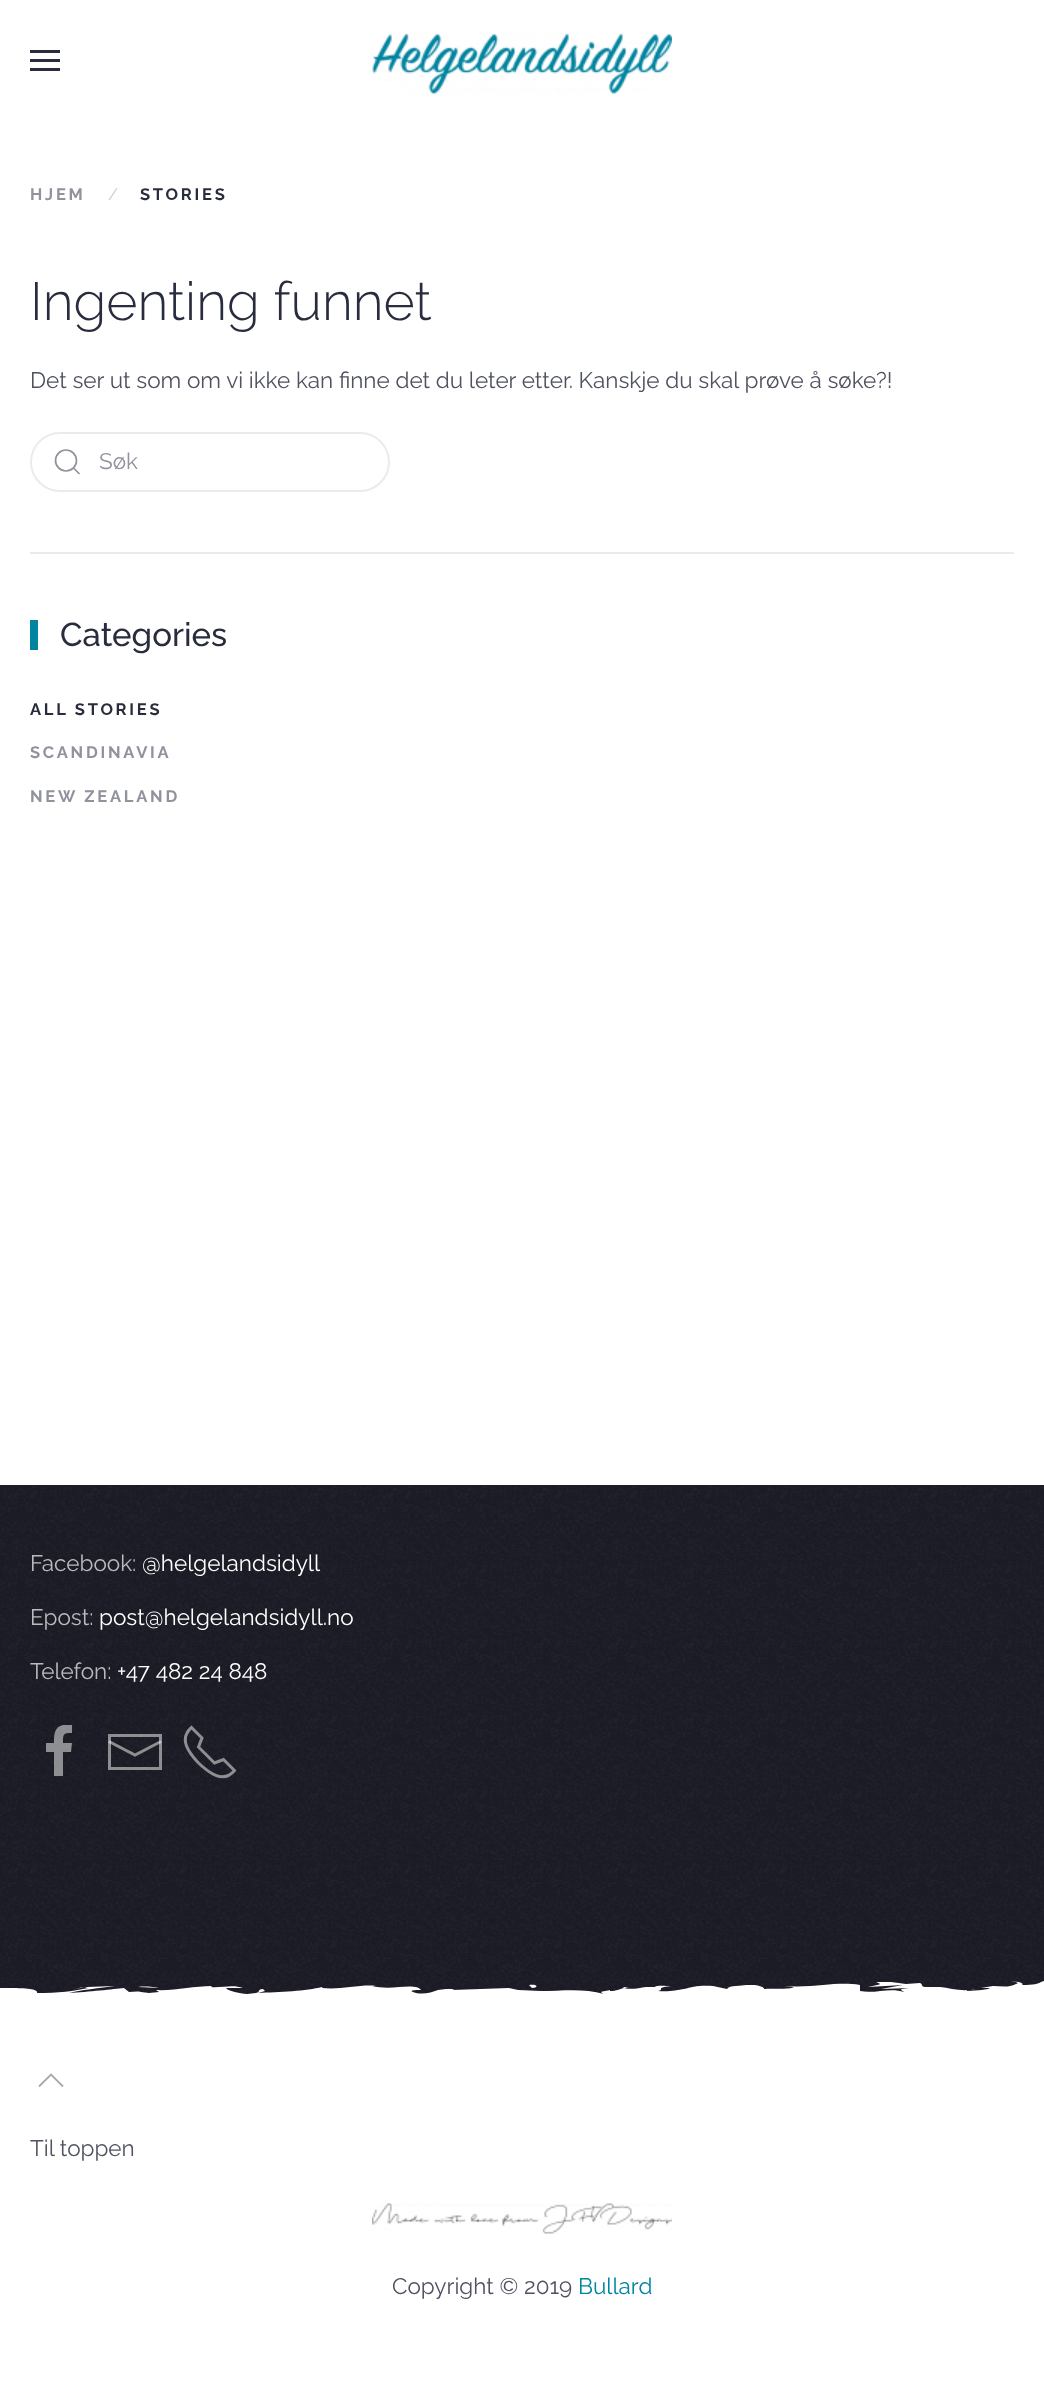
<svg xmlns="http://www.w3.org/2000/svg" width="1044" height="2396">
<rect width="100%" height="100%" fill="#fff"/>
<rect x="30" y="50" width="30" height="3" fill="#292c3d"/>
<rect x="30" y="59" width="30" height="3" fill="#292c3d"/>
<rect x="30" y="68" width="30" height="3" fill="#292c3d"/>
<image x="372" y="33" width="300" height="62" href="media/1.png"/>
<text x="30" y="200" style="font-family:Raleway;font-size:16.5px;font-weight:100;letter-spacing:2.75px;fill:#90929d">HJEM</text>
<text x="108" y="200" style="font-family:'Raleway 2';font-size:16.5px;font-weight:100;fill:#c8c9ce">/</text>
<text x="140" y="200" style="font-family:Raleway;font-size:16.5px;font-weight:100;letter-spacing:2.75px;fill:#292c3d">STORIES</text>
<text x="30" y="320" style="font-family:'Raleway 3';font-size:53.5px;font-weight:100;fill:#292c3d">Ingenting funnet</text>
<text x="30" y="388" style="font-family:'Raleway 2';font-size:22.5px;font-weight:100;fill:#4f5260">Det ser ut som om vi ikke kan finne det du leter etter. Kanskje du skal prøve å søke?!</text>
<rect x="31" y="433" width="358" height="58" rx="29" fill="none" stroke="#ebebed" stroke-width="2"/>
<circle cx="66" cy="460.5" r="10.5" fill="none" stroke="#90929d" stroke-width="1.7"/>
<path d="M73.5 468l6 6z" fill="none" stroke="#90929d" stroke-width="1.7"/>
<text x="99" y="469" style="font-family:'Raleway 2';font-size:22.5px;font-weight:100;fill:#90929d">Søk</text>
<rect x="30" y="552" width="984" height="2" fill="#ebebed"/>
<rect x="30" y="620" width="8" height="30" fill="#0085a1"/>
<text x="60" y="646" style="font-family:'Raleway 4';font-size:33px;font-weight:100;fill:#292c3d">Categories</text>
<text x="30" y="715" style="font-family:Raleway;font-size:16.5px;font-weight:100;letter-spacing:2.75px;fill:#292c3d">ALL STORIES</text>
<text x="30" y="758" style="font-family:Raleway;font-size:16.5px;font-weight:100;letter-spacing:2.75px;fill:#90929d">SCANDINAVIA</text>
<text x="30" y="802" style="font-family:Raleway;font-size:16.5px;font-weight:100;letter-spacing:2.75px;fill:#90929d">NEW ZEALAND</text>
<rect y="1485" width="1044" height="509" fill="#1b1c26"/>
<image x="0" y="1485" width="1044" height="509" href="media/2.png"/>
<text x="30" y="1571" style="font-family:'Raleway 2';font-size:22.5px;font-weight:100;fill:#bbbbbe">Facebook:</text>
<text x="142" y="1571" style="font-family:'Raleway 2';font-size:22.5px;font-weight:100;fill:#fff">@helgelandsidyll</text>
<text x="30" y="1625" style="font-family:'Raleway 2';font-size:22.5px;font-weight:100;fill:#bbbbbe">Epost:</text>
<text x="99" y="1625" style="font-family:'Raleway 2';font-size:22.5px;font-weight:100;fill:#fff">post@helgelandsidyll.no</text>
<text x="30" y="1679" style="font-family:'Raleway 2';font-size:22.5px;font-weight:100;fill:#bbbbbe">Telefon:</text>
<text x="117" y="1679" style="font-family:'Raleway 2';font-size:22.5px;font-weight:100;fill:#fff">+47 482 24 848</text>
<path d="M63 1752h8l1-9h-9c0-9 0-10 9-10v-8h-9c-9 2-9 10-9 18h-8v9h8v24h9z" fill="#ffffff80"/>
<path d="M109 1741.5l26 13.5l26-13.5" fill="none" stroke="#ffffff80" stroke-width="3"/>
<path d="M108 1734v36h54v-36zm51 33h-48v-30h48z" fill="#ffffff80"/>
<path d="M198.5 1763c9.5 9 24.5 21.5 36 7.5l-11-11l-9 3.5l-16-16l3.5-9l-10.5-10.5c-13.5 11.5-2 26 7 35.5" fill="none" stroke="#ffffff80" stroke-width="3"/>
<path d="M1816 1990c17 1 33-1 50-2v13h-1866v-13c8 0 40-1 37 5c21 0 38-2 51-5c-5-1-9 0-14 1l13-2l28-1c-14 2-36 4-46 7c19-1 45-4 55-5l5 4c4 0 8-1 12 0l8 1l10-1l-3-2c19 1 37-4 56-4l-1 1c11 1 22-3 32 1h-17c1 3 18 6 21 6l9-1c5-1 1-4 7-4l2 2l-7 2c21-1 49-2 64-6c1 1 0 1 0 1c10 1 19 0 28-1c10-1 19-2 26-1h-4c8 2 18 2 27 1c11-1 20-1 22 3h1h-3c-1 0-11 0-6 2c8 3 18 1 25-2l8-1h9c-1 0-1 0-3 1l57-2l9 2l23 1c20 0 43-3 63 3c-8-3 4-3 6-4v1c7 0 9-2 14-3l-1-1h6l-5 1c7 2 15 0 22-1h9c0-2 12-1 16-1c-10 1-10 2-10 3c0 1 0 1-3 2c12 1 19-1 26-2c8-2 15-4 29-3l14 3c2-4 15-3 19-4h8l-3-2l3 2c2 0 11 2 10 4c7-1 25 1 30-2l-10-1c15 1 28 0 39-1c13-1 24-2 37 0v6c15 3 30-4 44 1c0-1-5-2-2-3l7-1l-28 1l22-4l-35 2l9-2c6-1 1-2-1-3h15l15 2l14-1c3 1 1 4 5 4h15c9 1 19 4 29 3c-1 0-2 0-2 1c12-1 20-1 23-3h-9l12-2c8 0 15 2 23-2c5-2-3-2-4-2c4-1 13 1 10 3c12 0 16-1 19-3c3-1 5-2 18-1c-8 1 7 2 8 2c-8 0 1 3-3 3h-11c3 4 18 2 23 2h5l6-1c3-2-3-4 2-5c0 1 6 1 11 1l-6-2l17-1l-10 1c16 1 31 4 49 2c-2 0-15 3-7 4c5 1 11-1 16 0c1 1 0 4 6 4l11-1c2-1 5-2 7-2h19c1-1-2-2-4-2l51 1c-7-1-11-2 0-3c-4 2 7 2 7 2l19 1l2-1c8 2-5 2-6 3c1-1-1-1-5-1c-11 1-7 6 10 6c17-1 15-4 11-6c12 1 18 0 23-2c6-1 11-3 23-2c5 0 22 6 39 6c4-1-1-2-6-2c-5-1-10-1-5-3c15 4 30 3 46 1c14-1 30-3 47-1l-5 4h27l-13-2c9-1 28 0 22 3c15-3 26-1 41-1h-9l-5 2c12 1 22 0 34 0c-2 1 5 3 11 3c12-3 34-2 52-3v1c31-2 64 5 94 0c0 0-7-1-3-2l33-2c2 1 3 2 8 2c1-2 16-3 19-2c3 0 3 2 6 3h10c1 0 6-1 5-3c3 1 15 3 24 3h-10c-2 2 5 1 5 3c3 0 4-1 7-1l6-1l-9 3c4 1 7 0 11 0c-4 0-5 1-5 3h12c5-3-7-6-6-8zm-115 2h-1zm-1 0l-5-1zm-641-11c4 0 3 1 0 0zm-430 6h0zm-116 1h-6h2zm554-5l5-1zm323 0l-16 1zm-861 2c10-1 9 3 3 3zm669 1l-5-1zm-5-1h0zm-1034 3l-21-1c6-1 17 0 21 1zm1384-1l-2 2c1-1-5-2-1-2zm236 0l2 1zm-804 0l6 1zm-346 0l2 1zm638 2h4zm-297 1l4-1c3 0-4 1-4 1zm-360 0h0zm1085 1h-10l-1-1z" fill="#fff" fill-rule="evenodd"/>
<path d="M39 2086.5l12-12l12 12" fill="none" stroke="#a7a9b0" stroke-width="1.8"/>
<text x="30" y="2156" style="font-family:'Raleway 2';font-size:22.5px;font-weight:100;fill:#4f5260">Til toppen</text>
<image x="372" y="2203" width="300" height="31" href="media/3.png"/>
<text x="392" y="2294" style="font-family:'Raleway 2';font-size:22.5px;font-weight:100;fill:#4f5260">Copyright © 2019</text>
<text x="578" y="2294" style="font-family:'Raleway 2';font-size:22.5px;font-weight:100;fill:#0085a1">Bullard</text>
</svg>
